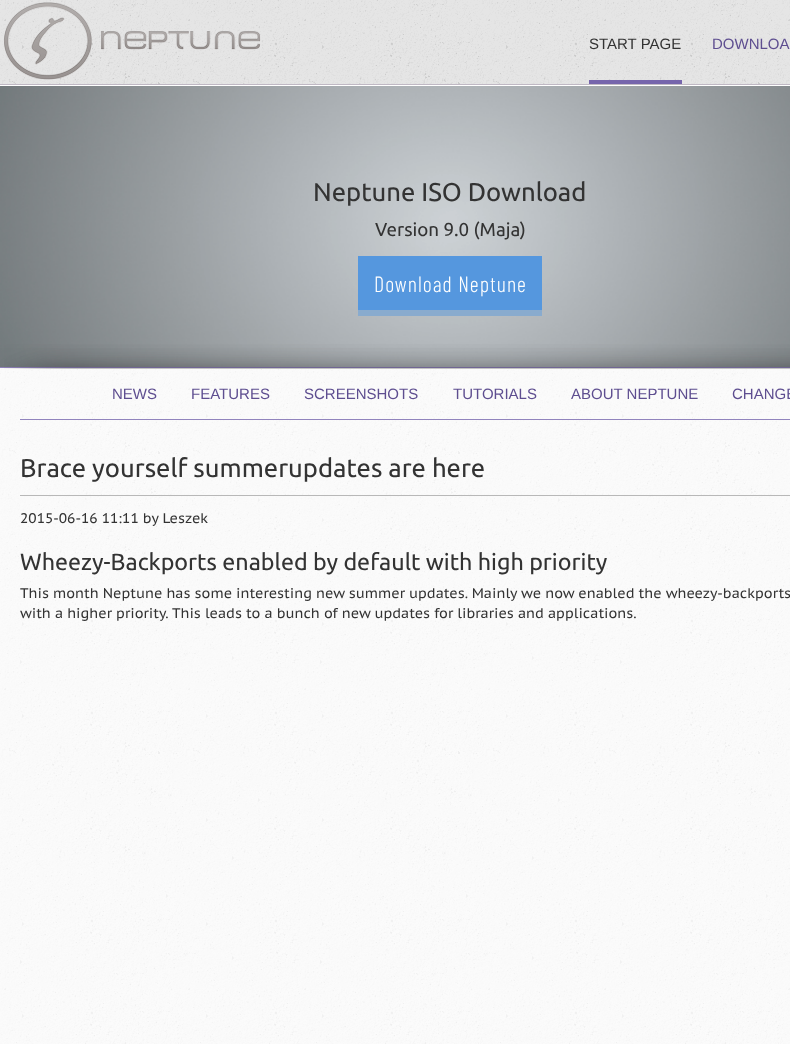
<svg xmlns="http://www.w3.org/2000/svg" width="790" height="1044">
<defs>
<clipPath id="clip1"><rect x="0" y="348" width="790" height="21"/></clipPath>
<clipPath id="clip2"><rect x="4" y="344" width="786" height="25"/></clipPath>
</defs>
<rect width="100%" height="100%" fill="#fff"/>
<image x="0" y="0" width="790" height="84" href="media/1.png"/>
<rect y="84" width="790" height="1" fill="#c0b9c4"/>
<image x="4" y="2" width="257" height="78" href="media/2.png"/>
<text x="589" y="49" style="font-family:Liberation Sans;font-size:15px;fill:#333">START PAGE</text>
<rect x="589" y="80" width="93" height="4" fill="#7665ac"/>
<text x="712" y="49" style="font-family:Liberation Sans;font-size:15px;fill:#5e4e90">DOWNLOA</text>
<image x="0" y="86" width="790" height="281" href="media/3.png"/>
<rect y="367" width="790" height="1" fill="#9184bd"/>
<text x="313" y="201" style="font-family:Ubuntu;font-size:25.7px;fill:#333">Neptune ISO Download</text>
<text x="375" y="236" style="font-family:Ubuntu;font-size:18.75px;fill:#333">Version 9.0 (Maja)</text>
<rect x="358" y="256" width="184" height="54" fill="#5597de"/>
<text x="374" y="292" style="font-family:Barlow Condensed;font-size:22px;font-weight:300;letter-spacing:1px;fill:#fff">Download Neptune</text>
<rect x="358" y="310" width="184" height="6" fill="#89abce"/>
<image x="0" y="369" width="790" height="675" href="media/4.png"/>
<g clip-path="url(#clip1)">
<rect x="21" y="395" width="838" height="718" fill="#000" filter="blur(23px)"/>
</g>
<g clip-path="url(#clip2)">
<rect x="31" y="395" width="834" height="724" fill="#000" filter="blur(25px)"/>
</g>
<rect x="20" y="419" width="770" height="1" fill="#9184bd"/>
<text x="112" y="399" style="font-family:Liberation Sans;font-size:15px;fill:#5e4e90">NEWS</text>
<text x="191" y="399" style="font-family:Liberation Sans;font-size:15px;fill:#5e4e90">FEATURES</text>
<text x="304" y="399" style="font-family:Liberation Sans;font-size:15px;fill:#5e4e90">SCREENSHOTS</text>
<text x="453" y="399" style="font-family:Liberation Sans;font-size:15px;fill:#5e4e90">TUTORIALS</text>
<text x="571" y="399" style="font-family:Liberation Sans;font-size:15px;fill:#5e4e90">ABOUT NEPTUNE</text>
<text x="732" y="399" style="font-family:Liberation Sans;font-size:15px;fill:#5e4e90">CHANGE</text>
<rect x="20" y="495" width="770" height="1" fill="#b8b8b8"/>
<text x="20" y="477" style="font-family:Ubuntu;font-size:25.7px;fill:#333">Brace yourself summerupdates are here</text>
<text x="20" y="523" style="font-family:PT Sans Caption;font-size:14px;fill:#333">2015-06-16 11:11 by Leszek</text>
<text x="20" y="570" style="font-family:Ubuntu;font-size:23.3px;fill:#333">Wheezy-Backports enabled by default with high priority</text>
<text x="20" y="598" style="font-family:PT Sans Caption;font-size:14px;fill:#333">This month Neptune has some interesting new summer updates. Mainly we now enabled the wheezy-backports</text>
<text x="20" y="618" style="font-family:PT Sans Caption;font-size:14px;fill:#333">with a higher priority. This leads to a bunch of new updates for libraries and applications.</text>
</svg>
